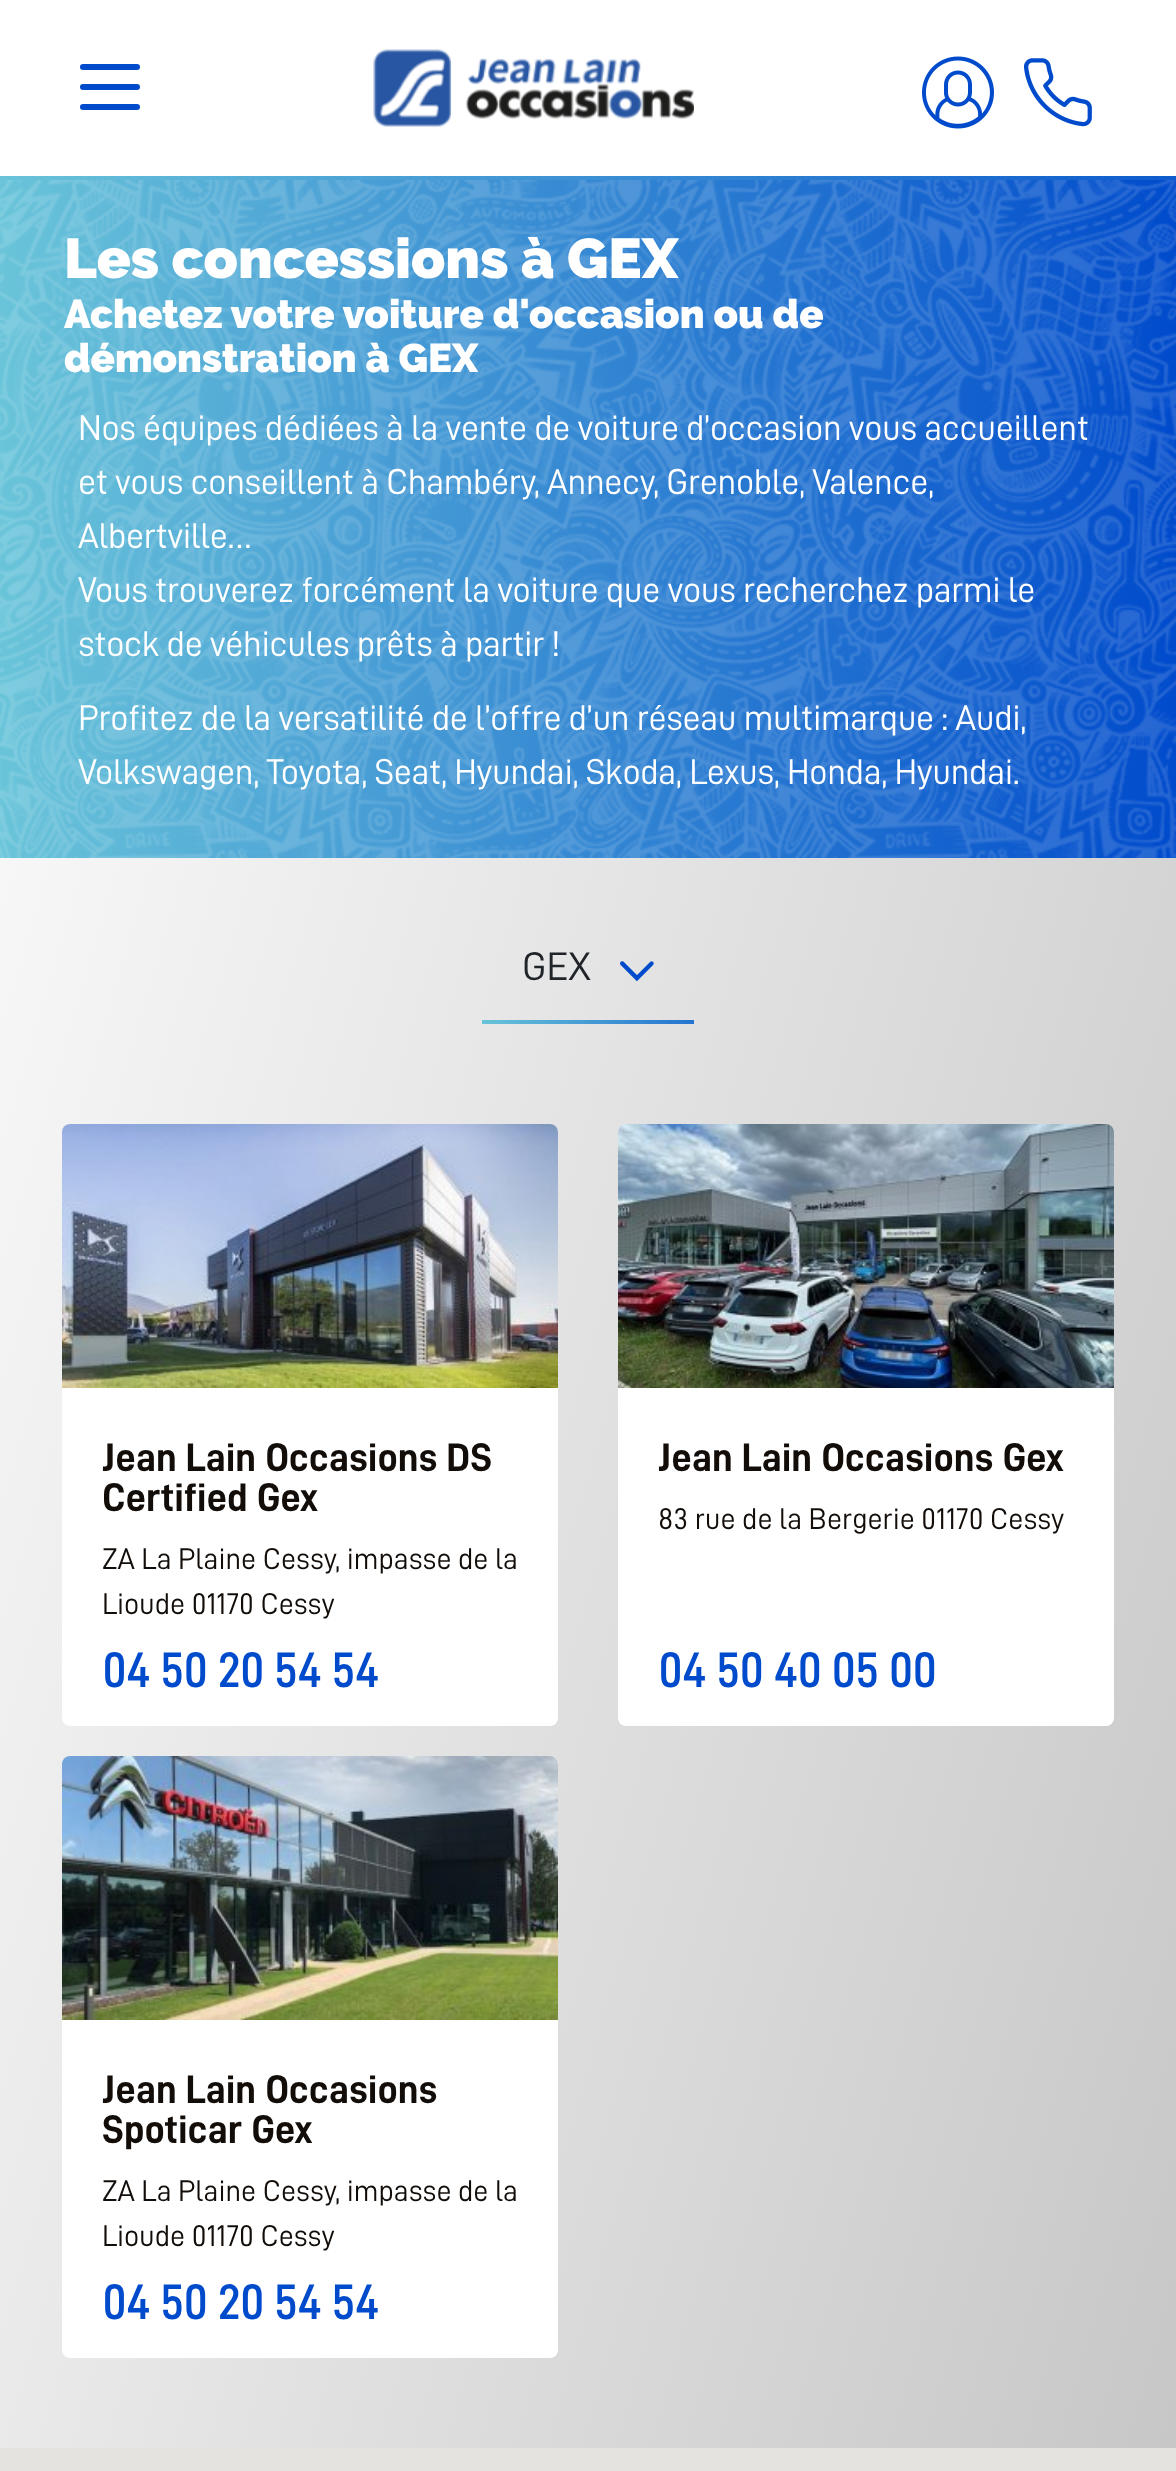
<svg xmlns="http://www.w3.org/2000/svg" width="1176" height="2471">
<defs>
<linearGradient id="g1" gradientUnits="userSpaceOnUse" x1="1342" y1="1869" x2="-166" y2="1437"><stop offset="0" stop-color="#c7c7c7"/><stop offset="1" stop-color="#f7f7f7"/></linearGradient>
</defs>
<rect width="100%" height="100%" fill="#fff"/>
<image x="0" y="176" width="1176" height="4" href="media/1.png"/>
<rect x="80" y="64" width="60" height="6" rx="3" fill="#004bcc"/>
<rect x="80" y="84" width="60" height="6" rx="3" fill="#004bcc"/>
<rect x="80" y="104" width="60" height="6" rx="3" fill="#004bcc"/>
<image x="373" y="49" width="321" height="78" href="media/2.png"/>
<image x="922" y="56" width="72" height="73" href="media/3.png"/>
<image x="1023" y="58" width="69" height="69" href="media/4.png"/>
<image x="0" y="180" width="1176" height="678" href="media/5.png"/>
<text x="64" y="278" style="font-family:Raleway;font-size:56px;font-weight:900;fill:#fff">Les concessions à GEX</text>
<text x="64" y="328" style="font-family:Raleway;font-size:40px;font-weight:900;fill:#fff">Achetez votre voiture d'occasion ou de</text>
<text x="64" y="372" style="font-family:Raleway;font-size:40px;font-weight:900;fill:#fff">démonstration à GEX</text>
<text x="78" y="440" style="font-family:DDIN;font-size:36px;letter-spacing:-0.35px;fill:#fff">Nos équipes dédiées à la vente de voiture d’occasion vous accueillent</text>
<text x="78" y="494" style="font-family:DDIN;font-size:36px;letter-spacing:-0.35px;fill:#fff">et vous conseillent à Chambéry, Annecy, Grenoble, Valence,</text>
<text x="78" y="548" style="font-family:DDIN;font-size:36px;letter-spacing:-0.35px;fill:#fff">Albertville…</text>
<text x="78" y="602" style="font-family:DDIN;font-size:36px;letter-spacing:-0.35px;fill:#fff">Vous trouverez forcément la voiture que vous recherchez parmi le</text>
<text x="78" y="656" style="font-family:DDIN;font-size:36px;letter-spacing:-0.35px;fill:#fff">stock de véhicules prêts à partir !</text>
<text x="78" y="730" style="font-family:DDIN;font-size:36px;letter-spacing:-0.35px;fill:#fff">Profitez de la versatilité de l’offre d’un réseau multimarque : Audi,</text>
<text x="78" y="784" style="font-family:DDIN;font-size:36px;letter-spacing:-0.35px;fill:#fff">Volkswagen, Toyota, Seat, Hyundai, Skoda, Lexus, Honda, Hyundai.</text>
<rect y="858" width="1176" height="1590" fill="url(#g1)"/>
<image x="482" y="1020" width="212" height="4" href="media/6.png"/>
<text x="522" y="980" style="font-family:DDIN;font-size:40px;fill:#212529">GEX</text>
<image x="620" y="961" width="34" height="21" href="media/7.png"/>
<rect x="62" y="1124" width="496" height="602" rx="8" fill="#fff"/>
<image x="62" y="1124" width="496" height="264" href="media/8.png"/>
<text x="102" y="1471" style="font-family:DDIN;font-size:40px;font-weight:bold;fill:#120d09">Jean Lain Occasions DS</text>
<text x="102" y="1511" style="font-family:DDIN;font-size:40px;font-weight:bold;fill:#120d09">Certified Gex</text>
<text x="102" y="1569" style="font-family:DDIN;font-size:30px;fill:#120d09">ZA La Plaine Cessy, impasse de la</text>
<text x="102" y="1614" style="font-family:DDIN;font-size:30px;fill:#120d09">Lioude 01170 Cessy</text>
<text x="102" y="1687" style="font-family:'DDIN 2';font-size:48px;font-weight:bold;fill:#004bcc">04 50 20 54 54</text>
<rect x="618" y="1124" width="496" height="602" rx="8" fill="#fff"/>
<image x="618" y="1124" width="496" height="264" href="media/9.png"/>
<text x="658" y="1471" style="font-family:DDIN;font-size:40px;font-weight:bold;fill:#120d09">Jean Lain Occasions Gex</text>
<text x="658" y="1529" style="font-family:DDIN;font-size:30px;fill:#120d09">83 rue de la Bergerie 01170 Cessy</text>
<text x="658" y="1687" style="font-family:'DDIN 2';font-size:48px;font-weight:bold;fill:#004bcc">04 50 40 05 00</text>
<rect x="62" y="1756" width="496" height="602" rx="8" fill="#fff"/>
<image x="62" y="1756" width="496" height="264" href="media/10.png"/>
<text x="102" y="2103" style="font-family:DDIN;font-size:40px;font-weight:bold;fill:#120d09">Jean Lain Occasions</text>
<text x="102" y="2143" style="font-family:DDIN;font-size:40px;font-weight:bold;fill:#120d09">Spoticar Gex</text>
<text x="102" y="2201" style="font-family:DDIN;font-size:30px;fill:#120d09">ZA La Plaine Cessy, impasse de la</text>
<text x="102" y="2246" style="font-family:DDIN;font-size:30px;fill:#120d09">Lioude 01170 Cessy</text>
<text x="102" y="2319" style="font-family:'DDIN 2';font-size:48px;font-weight:bold;fill:#004bcc">04 50 20 54 54</text>
<rect y="2448" width="1176" height="23" fill="#e5e3df"/>
</svg>
